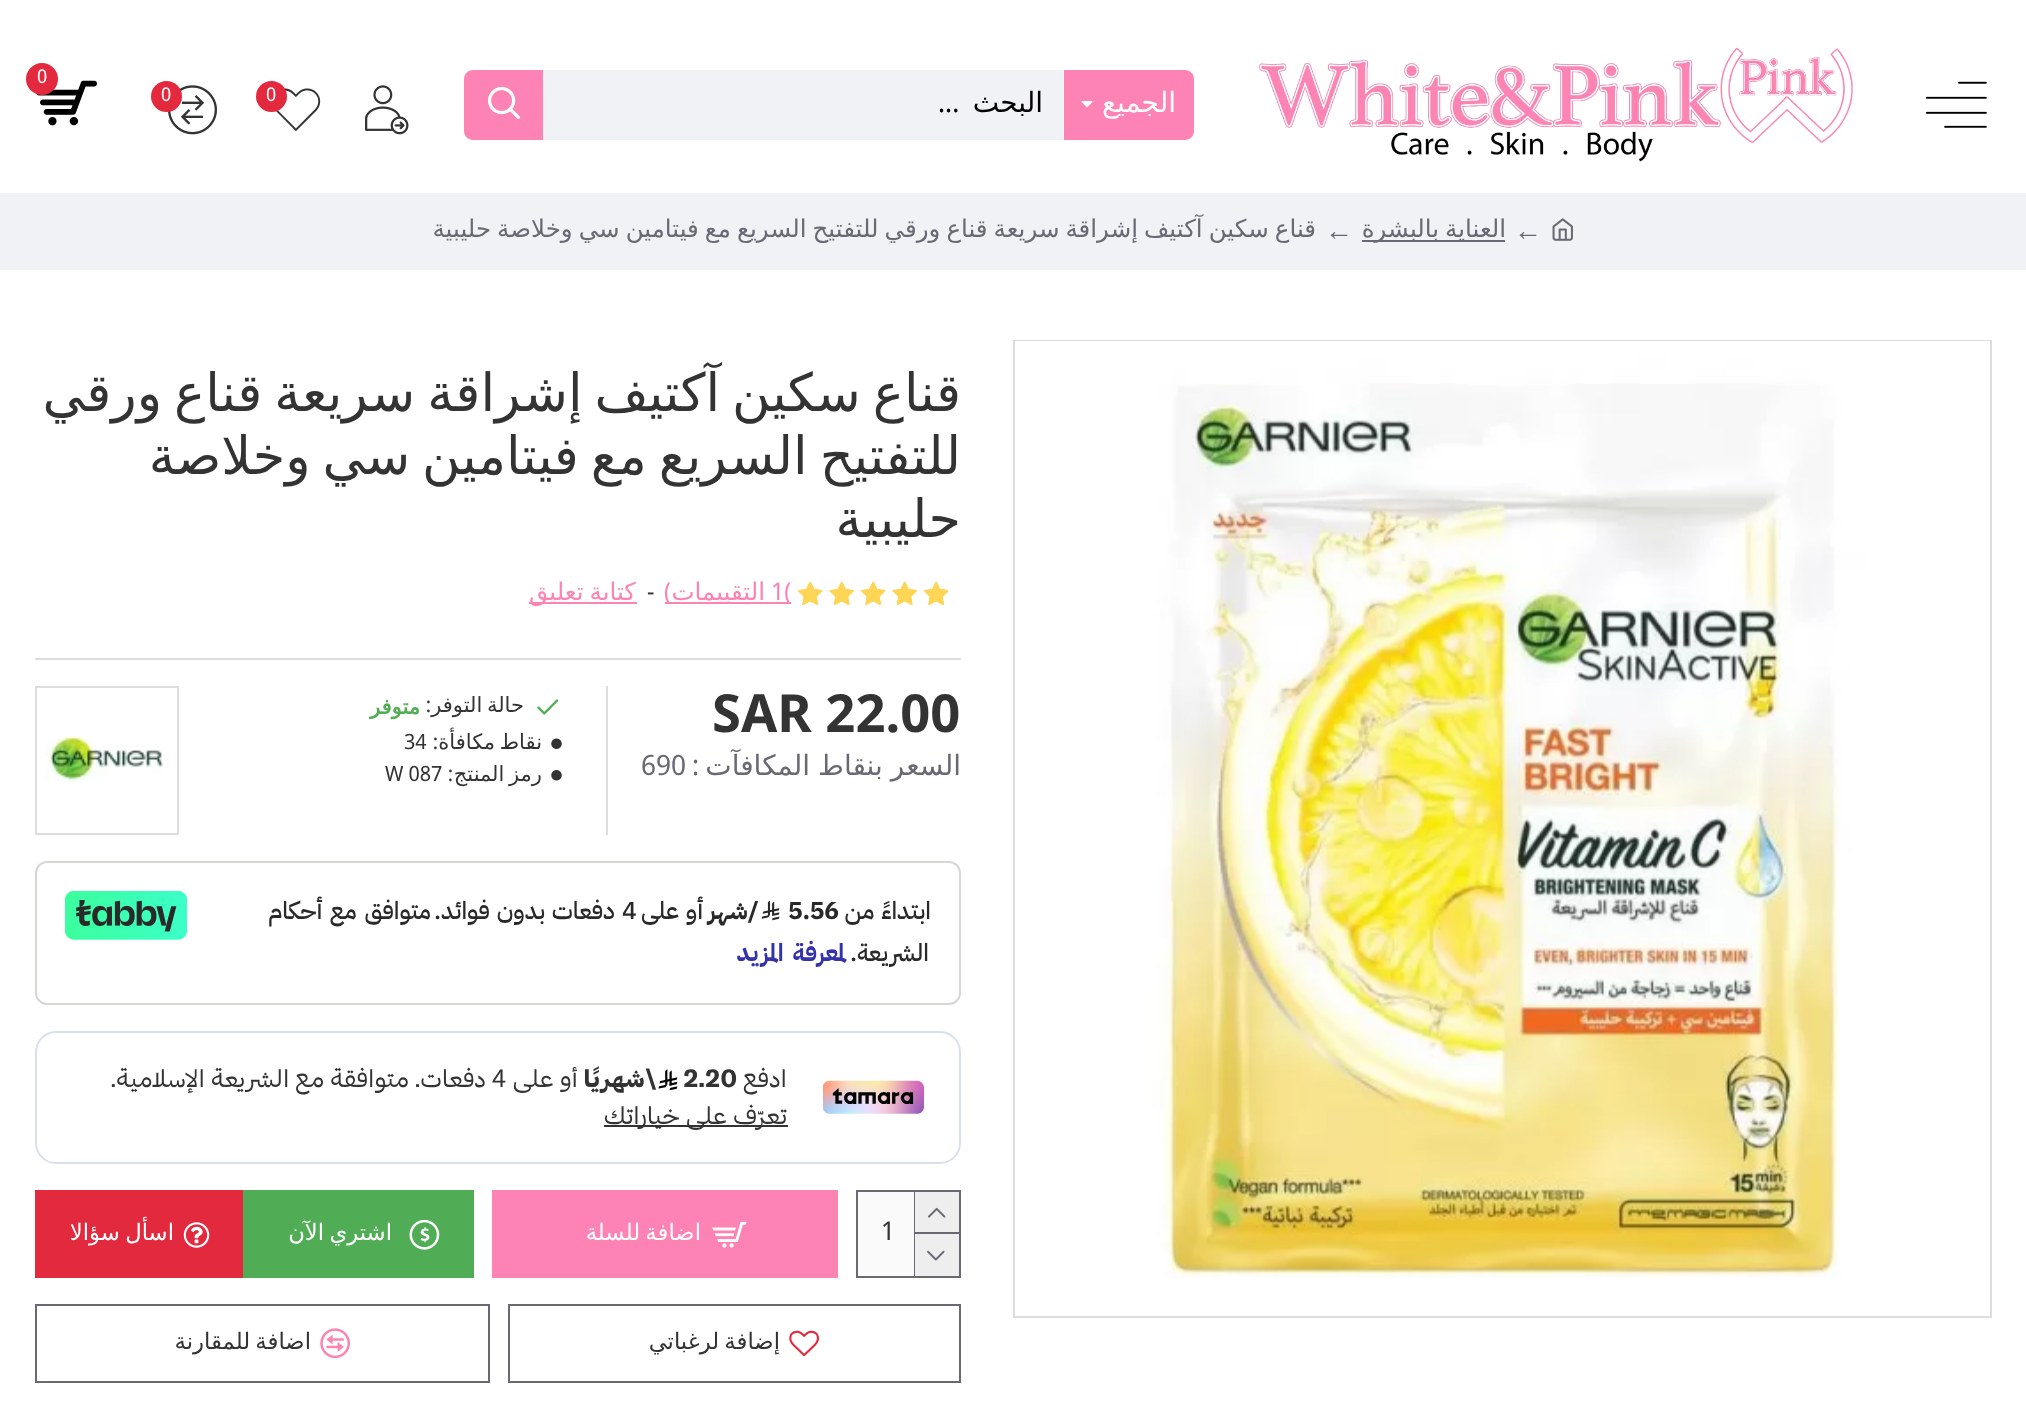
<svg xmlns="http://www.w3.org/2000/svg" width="2026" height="1412">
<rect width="100%" height="100%" fill="#fff"/>
<image x="1925" y="81" width="62" height="47" href="media/1.png"/>
<image x="1259" y="47" width="594" height="115" href="media/2.png"/>
<path d="M1064 70h121c5 0 9 4 9 9v52c0 5-4 9-9 9h-121z" fill="#fd83b4"/>
<text x="1176" y="112" style="font-family:DejaVu Sans;font-size:28px;direction:rtl;fill:#fff">الجميع</text>
<image x="1081" y="101" width="12" height="7" href="media/3.png"/>
<rect x="543" y="70" width="521" height="70" fill="#f0f2f5"/>
<text x="1043" y="112" style="font-family:DejaVu Sans;font-size:28px;direction:rtl;fill:#000">البحث</text>
<text x="938" y="112" style="font-family:Noto Sans Display;font-size:28px;fill:#000">...</text>
<path d="M473 70h70v70h-70c-5 0-9-4-9-9v-52c0-5 4-9 9-9z" fill="#fd83b4"/>
<image x="488" y="86" width="32" height="33" href="media/4.png"/>
<image x="36" y="80" width="61" height="46" href="media/5.png"/>
<circle cx="42" cy="79" r="16" fill="#e2293d"/>
<text x="37" y="83" style="font-family:Noto Sans Display;font-size:19px;fill:#fff">0</text>
<image x="365" y="85" width="44" height="50" href="media/6.png"/>
<image x="276" y="88" width="45" height="44" href="media/7.png"/>
<circle cx="271.5" cy="96.5" r="15.5" fill="#e2293d"/>
<text x="266" y="101" style="font-family:Noto Sans Display;font-size:19px;fill:#fff">0</text>
<image x="168" y="85" width="49" height="50" href="media/8.png"/>
<circle cx="166.5" cy="96.5" r="15.5" fill="#e2293d"/>
<text x="161" y="101" style="font-family:Noto Sans Display;font-size:19px;fill:#fff">0</text>
<rect y="193" width="2026" height="77" fill="#f0f2f5"/>
<image x="1552" y="218" width="21" height="23" href="media/9.png"/>
<text x="1514" y="240" style="font-family:Liberation Serif;font-size:28px;fill:#696973">←</text>
<rect x="1362" y="240" width="143" height="2" fill="#696973"/>
<text x="1506" y="237" word-spacing="-1.75" style="font-family:DejaVu Sans;font-size:24.5px;direction:rtl;fill:#696973">العناية بالبشرة</text>
<text x="1325" y="240" style="font-family:Liberation Serif;font-size:28px;fill:#696973">←</text>
<text x="1316" y="237" word-spacing="-1.75" style="font-family:DejaVu Sans;font-size:24.5px;direction:rtl;fill:#696973">قناع سكين آكتيف إشراقة سريعة قناع ورقي للتفتيح السريع مع فيتامين سي وخلاصة حليبية</text>
<rect x="1014" y="341" width="977" height="976" fill="none" stroke="#ddd" stroke-width="2"/>
<image x="1015" y="341" width="975" height="937" href="media/10.png"/>
<text x="961" y="411" word-spacing="-4.75" style="font-family:DejaVu Sans;font-size:52.5px;direction:rtl;fill:#333">قناع سكين آكتيف إشراقة سريعة قناع ورقي</text>
<text x="961" y="474" word-spacing="-4.75" style="font-family:DejaVu Sans;font-size:52.5px;direction:rtl;fill:#333">للتفتيح السريع مع فيتامين سي وخلاصة</text>
<text x="961" y="537" style="font-family:DejaVu Sans;font-size:52.5px;direction:rtl;fill:#333">حليبية</text>
<rect x="35" y="658" width="926" height="2" fill="#ddd"/>
<image x="924" y="581" width="25" height="24" href="media/11.png"/>
<image x="924" y="581" width="25" height="24" href="media/12.png"/>
<image x="892" y="581" width="25" height="24" href="media/13.png"/>
<image x="892" y="581" width="25" height="24" href="media/14.png"/>
<image x="861" y="581" width="25" height="24" href="media/11.png"/>
<image x="861" y="581" width="25" height="24" href="media/12.png"/>
<image x="829" y="581" width="25" height="24" href="media/13.png"/>
<image x="829" y="581" width="25" height="24" href="media/14.png"/>
<image x="798" y="581" width="25" height="24" href="media/11.png"/>
<image x="798" y="581" width="25" height="24" href="media/12.png"/>
<rect x="665" y="602" width="126" height="2" fill="#fd83b4"/>
<text x="771" y="600" style="font-family:Noto Sans Display;font-size:24.5px;fill:#fd83b4">1(</text>
<text x="765" y="600" style="font-family:DejaVu Sans;font-size:24.5px;direction:rtl;fill:#fd83b4">التقييمات</text>
<text x="671" y="600" style="font-family:Noto Sans Display;font-size:24.5px;direction:rtl;fill:#fd83b4">)</text>
<text x="647" y="600" style="font-family:Noto Sans Display;font-size:24.5px;fill:#333">-</text>
<rect x="529" y="602" width="108" height="2" fill="#fd83b4"/>
<text x="636" y="600" word-spacing="-1.75" style="font-family:DejaVu Sans;font-size:24.5px;direction:rtl;fill:#fd83b4">كتابة تعليق</text>
<text x="712" y="732" style="font-family:Noto Sans;font-size:52.5px;font-weight:bold;fill:#333">SAR 22.00</text>
<text x="961" y="775" word-spacing="-1" style="font-family:DejaVu Sans;font-size:28px;direction:rtl;fill:#696973">السعر بنقاط المكافآت</text>
<text x="699" y="775" style="font-family:Noto Sans Display;font-size:28px;direction:rtl;fill:#696973">:</text>
<text x="641" y="775" style="font-family:Noto Sans Display;font-size:28px;fill:#696973">690</text>
<rect x="606" y="686" width="2" height="149" fill="#ddd"/>
<image x="537" y="699" width="22" height="16" href="media/15.png"/>
<text x="524" y="712" word-spacing="-2" style="font-family:DejaVu Sans;font-size:21px;direction:rtl;fill:#333">حالة التوفر</text>
<text x="431" y="712" style="font-family:Noto Sans Display;font-size:21px;direction:rtl;fill:#333">:</text>
<text x="420" y="714" style="font-family:DejaVu Sans;font-size:21px;font-weight:bold;direction:rtl;fill:#50ad55">متوفر</text>
<image x="551" y="738" width="11" height="11" href="media/16.png"/>
<text x="542" y="749" word-spacing="-2" style="font-family:DejaVu Sans;font-size:21px;direction:rtl;fill:#333">نقاط مكافأة</text>
<text x="438" y="749" style="font-family:Noto Sans Display;font-size:21px;direction:rtl;fill:#333">:</text>
<text x="404" y="749" style="font-family:Noto Sans Display;font-size:21px;fill:#333">34</text>
<image x="551" y="770" width="11" height="11" href="media/17.png"/>
<text x="542" y="781" word-spacing="-2" style="font-family:DejaVu Sans;font-size:21px;direction:rtl;fill:#333">رمز المنتج</text>
<text x="453" y="781" style="font-family:Noto Sans Display;font-size:21px;direction:rtl;fill:#333">:</text>
<text x="385" y="781" style="font-family:Noto Sans Display;font-size:21px;fill:#333">W 087</text>
<rect x="36" y="687" width="142" height="147" fill="none" stroke="#ddd" stroke-width="2"/>
<image x="45" y="736" width="119" height="45" href="media/18.png"/>
<rect x="36" y="862" width="924" height="142" rx="11" fill="none" stroke="#d6d6d3" stroke-width="2"/>
<text x="931" y="919" word-spacing="1" style="font-family:IBM Plex Sans Arabic;font-size:24.5px;font-weight:500;letter-spacing:-0.25px;direction:rtl;fill:#292929">ابتداءً من</text>
<text x="788" y="919" style="font-family:IBM Plex Sans Arabic;font-size:24.5px;font-weight:bold;letter-spacing:-0.25px;fill:#292929">5.56</text>
<image x="761" y="900" width="19" height="21" href="media/19.png"/>
<text x="759" y="919" style="font-family:IBM Plex Sans Arabic;font-size:24.5px;font-weight:bold;letter-spacing:-0.25px;direction:rtl;fill:#292929">/شهر</text>
<text x="703" y="919" word-spacing="1" style="font-family:IBM Plex Sans Arabic;font-size:24.5px;font-weight:500;letter-spacing:-0.25px;direction:rtl;fill:#292929">أو على</text>
<text x="622" y="919" style="font-family:IBM Plex Sans Arabic;font-size:24.5px;font-weight:500;letter-spacing:-0.25px;fill:#292929">4</text>
<text x="615" y="919" word-spacing="1" style="font-family:IBM Plex Sans Arabic;font-size:24.5px;font-weight:500;letter-spacing:-0.25px;direction:rtl;fill:#292929">دفعات بدون فوائد.</text>
<text x="431" y="919" word-spacing="2" style="font-family:IBM Plex Sans Arabic;font-size:24.5px;font-weight:500;letter-spacing:-0.25px;direction:rtl;fill:#292929">متوافق مع أحكام</text>
<text x="929" y="961" style="font-family:IBM Plex Sans Arabic;font-size:24.5px;font-weight:500;letter-spacing:-0.25px;direction:rtl;fill:#292929">الشريعة.</text>
<text x="846" y="961" word-spacing="3" style="font-family:IBM Plex Sans Arabic;font-size:24.5px;font-weight:bold;letter-spacing:-0.25px;direction:rtl;fill:#3533ac">لمعرفة المزيد</text>
<image x="65" y="891" width="122" height="49" href="media/20.png"/>
<rect x="36" y="1032" width="924" height="131" rx="20" fill="none" stroke="#dae0eb" stroke-width="2"/>
<image x="823" y="1080" width="101" height="34" href="media/21.png"/>
<text x="787" y="1087" style="font-family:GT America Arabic;font-size:24.5px;direction:rtl;fill:#333">ادفع</text>
<text x="683" y="1087" style="font-family:GT America Arabic;font-size:24.5px;font-weight:bold;fill:#333">2.20</text>
<image x="658" y="1069" width="20" height="21" href="media/22.png"/>
<text x="657" y="1087" style="font-family:GT America Arabic;font-size:24.5px;font-weight:bold;direction:rtl;fill:#333">\شهريًا</text>
<text x="578" y="1087" style="font-family:GT America Arabic;font-size:24.5px;direction:rtl;fill:#333">أو على</text>
<text x="492" y="1087" style="font-family:GT America Arabic;font-size:24.5px;fill:#333">4</text>
<text x="486" y="1087" style="font-family:GT America Arabic;font-size:24.5px;direction:rtl;fill:#333">دفعات. متوافقة مع الشريعة الإسلامية.</text>
<rect x="604" y="1125" width="184" height="2" fill="#333"/>
<text x="787" y="1124" style="font-family:GT America Arabic;font-size:24.5px;direction:rtl;fill:#333">تعرّف على خياراتك</text>
<rect x="857" y="1191" width="103" height="86" fill="none" stroke="#696973" stroke-width="2"/>
<rect x="914" y="1192" width="1" height="84" fill="#696973"/>
<rect x="915" y="1192" width="44" height="40" fill="#eee"/>
<rect x="915" y="1232" width="44" height="2" fill="#696973"/>
<image x="928" y="1207" width="18" height="11" href="media/23.png"/>
<rect x="915" y="1234" width="44" height="42" fill="#eee"/>
<image x="927" y="1250" width="18" height="11" href="media/24.png"/>
<rect x="858" y="1192" width="56" height="84" fill="#fafafa"/>
<text x="881" y="1240" style="font-family:Noto Sans Display;font-size:26px;fill:#333">1</text>
<rect x="492" y="1190" width="346" height="88" fill="#fd83b4"/>
<image x="712" y="1221" width="35" height="27" href="media/25.png"/>
<text x="701" y="1240" word-spacing="-2" style="font-family:DejaVu Sans;font-size:22.75px;direction:rtl;fill:#fff">اضافة للسلة</text>
<rect x="243" y="1190" width="231" height="88" fill="#50ad55"/>
<image x="409" y="1219" width="31" height="31" href="media/26.png"/>
<text x="392" y="1240" word-spacing="-2" style="font-family:DejaVu Sans;font-size:22.75px;direction:rtl;fill:#fff">اشتري الآن</text>
<rect x="35" y="1190" width="208" height="88" fill="#e2293d"/>
<image x="183" y="1222" width="27" height="26" href="media/27.png"/>
<text x="174" y="1240" word-spacing="-2" style="font-family:DejaVu Sans;font-size:22.75px;direction:rtl;fill:#fff">اسأل سؤالا</text>
<rect x="509" y="1305" width="451" height="77" fill="none" stroke="#696973" stroke-width="2"/>
<image x="789" y="1330" width="30" height="27" href="media/28.png"/>
<text x="780" y="1349" word-spacing="-2" style="font-family:DejaVu Sans;font-size:22.75px;direction:rtl;fill:#333">إضافة لرغباتي</text>
<rect x="36" y="1305" width="453" height="77" fill="none" stroke="#696973" stroke-width="2"/>
<image x="320" y="1328" width="30" height="31" href="media/29.png"/>
<text x="311" y="1349" word-spacing="-2" style="font-family:DejaVu Sans;font-size:22.75px;direction:rtl;fill:#333">اضافة للمقارنة</text>
</svg>
